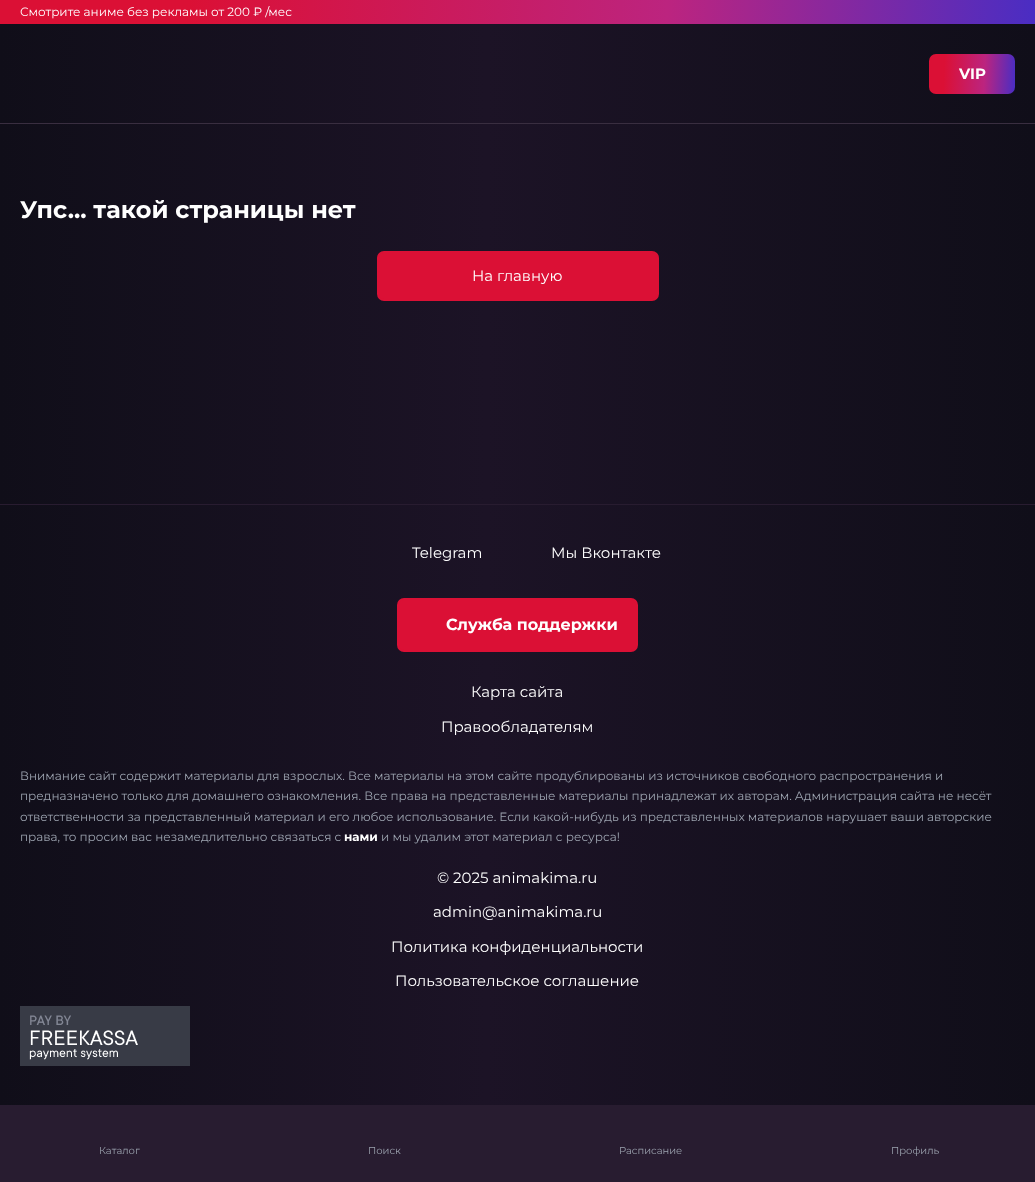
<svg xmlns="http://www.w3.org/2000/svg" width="1035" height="1182">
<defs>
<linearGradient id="g1" gradientUnits="userSpaceOnUse" x1="0" y1="591" x2="1035" y2="591"><stop offset="0" stop-color="#100e19"/><stop offset="0.47" stop-color="#1c1326"/><stop offset="1" stop-color="#100e19"/></linearGradient>
<linearGradient id="g2" gradientUnits="userSpaceOnUse" x1="0.6" y1="-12" x2="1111" y2="40"><stop offset="0.17" stop-color="#db1035"/><stop offset="0.6" stop-color="#bc247f"/><stop offset="1" stop-color="#322fd1"/></linearGradient>
<linearGradient id="g3" gradientUnits="userSpaceOnUse" x1="928" y1="72" x2="1022" y2="76"><stop offset="0.17" stop-color="#db1035"/><stop offset="0.6" stop-color="#bc247f"/><stop offset="1" stop-color="#322fd1"/></linearGradient>
</defs>
<rect width="100%" height="100%" fill="#fff"/>
<rect y="24" width="1035" height="1081" fill="url(#g1)"/>
<rect width="1035" height="24" fill="url(#g2)"/>
<text x="20" y="16" style="font-family:Montserrat;font-size:12px;fill:#fff">Смотрите аниме без рекламы от 200 ₽ /мес</text>
<rect y="123" width="1035" height="1" fill="#392e40"/>
<rect x="929" y="54" width="86" height="40" rx="7" fill="url(#g3)"/>
<text x="959" y="79" style="font-family:Montserrat;font-size:15px;font-weight:bold;fill:#fff">VIP</text>
<rect y="1105" width="1035" height="77" fill="#281c30"/>
<text x="99" y="1154" style="font-family:Montserrat;font-size:10px;fill:#9ca3af">Каталог</text>
<text x="368" y="1154" style="font-family:Montserrat;font-size:10px;fill:#9ca3af">Поиск</text>
<text x="619" y="1154" style="font-family:Montserrat;font-size:10px;fill:#9ca3af">Расписание</text>
<text x="891" y="1154" style="font-family:Montserrat;font-size:10px;fill:#9ca3af">Профиль</text>
<text x="20" y="218" style="font-family:Montserrat;font-size:24px;font-weight:bold;fill:#fff">Упс... такой страницы нет</text>
<rect x="378" y="252" width="280" height="48" rx="6" fill="#db1035" stroke="#db1035" stroke-width="2"/>
<text x="472" y="281" style="font-family:Montserrat;font-size:15px;fill:#fff">На главную</text>
<rect y="504" width="1035" height="1" fill="#281c30"/>
<text x="412" y="558" style="font-family:Montserrat;font-size:15px;fill:#fff">Telegram</text>
<text x="551" y="558" style="font-family:Montserrat;font-size:15px;fill:#fff">Мы Вконтакте</text>
<rect x="398" y="599" width="239" height="52" rx="6" fill="#db1035" stroke="#db1035" stroke-width="2"/>
<text x="446" y="630" style="font-family:Montserrat;font-size:16px;font-weight:bold;fill:#fff">Служба поддержки</text>
<text x="471" y="697" style="font-family:Montserrat;font-size:15px;fill:#fff">Карта сайта</text>
<text x="441" y="732" style="font-family:Montserrat;font-size:15px;fill:#fff">Правообладателям</text>
<text x="20" y="780" style="font-family:Montserrat;font-size:12px;fill:#9ca3af">Внимание сайт содержит материалы для взрослых. Все материалы на этом сайте продублированы из источников свободного распространения и</text>
<text x="20" y="800" style="font-family:Montserrat;font-size:12px;fill:#9ca3af">предназначено только для домашнего ознакомления. Все права на представленные материалы принадлежат их авторам. Администрация сайта не несёт</text>
<text x="20" y="821" style="font-family:Montserrat;font-size:12px;fill:#9ca3af">ответственности за представленный материал и его любое использование. Если какой-нибудь из представленных материалов нарушает ваши авторские</text>
<text x="20" y="841" style="font-family:Montserrat;font-size:12px;fill:#9ca3af">права, то просим вас незамедлительно связаться с</text>
<text x="344" y="841" style="font-family:Montserrat;font-size:12px;font-weight:bold;fill:#fff">нами</text>
<text x="381" y="841" style="font-family:Montserrat;font-size:12px;fill:#9ca3af">и мы удалим этот материал с ресурса!</text>
<text x="437" y="883" style="font-family:Montserrat;font-size:15px;fill:#fff">© 2025 animakima.ru</text>
<text x="433" y="917" style="font-family:Montserrat;font-size:15px;fill:#fff">admin@animakima.ru</text>
<text x="391" y="952" style="font-family:Montserrat;font-size:15px;fill:#fff">Политика конфиденциальности</text>
<text x="395" y="986" style="font-family:Montserrat;font-size:15px;fill:#fff">Пользовательское соглашение</text>
<image x="20" y="1006" width="170" height="60" href="media/1.png"/>
</svg>
